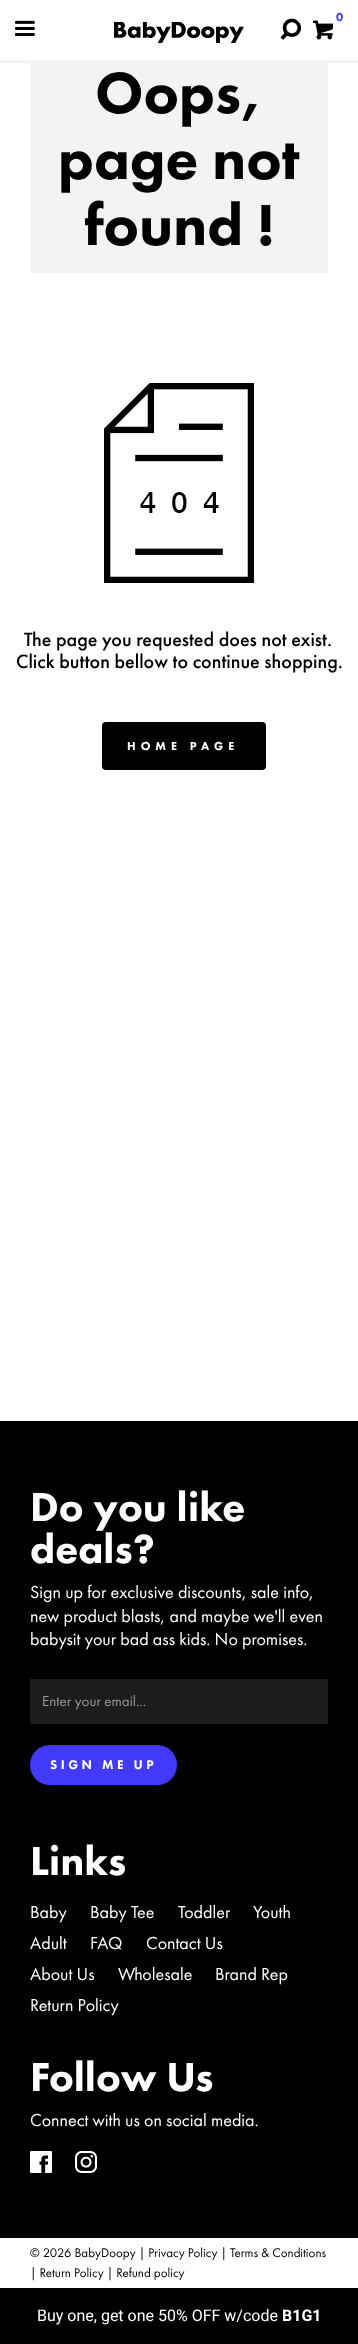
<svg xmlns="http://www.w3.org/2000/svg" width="358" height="2344">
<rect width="100%" height="100%" fill="#fff"/>
<rect x="-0.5" y="-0.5" width="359" height="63" fill="none" stroke="#f4f2ef"/>
<rect y="60" width="358" height="2" fill="#f5f5f5"/>
<text x="336" y="21" style="font-family:Futura PT;font-size:12px;font-weight:900;fill:#423afa">0</text>
<image x="313" y="20" width="20" height="20" href="media/1.png"/>
<image x="15" y="20" width="20" height="17" href="media/2.png"/>
<image x="114" y="22" width="130" height="21" href="media/3.png"/>
<image x="280" y="18" width="22" height="22" href="media/4.png"/>
<rect x="30" y="63" width="298" height="210" fill="#f3f3f3"/>
<text x="95" y="113" style="font-family:Futura PT;font-size:60px;font-weight:900;fill:#000">Oops,</text>
<text x="58" y="179" style="font-family:Futura PT;font-size:60px;font-weight:900;fill:#000">page not</text>
<text x="84" y="245" style="font-family:Futura PT;font-size:60px;font-weight:900;fill:#000">found !</text>
<image x="104" y="383" width="150" height="200" href="media/5.png"/>
<text x="24" y="646" style="font-family:Futura PT;font-size:20px;font-weight:500;fill:#000">The page you requested does not exist.</text>
<text x="16" y="668" style="font-family:Futura PT;font-size:20px;font-weight:500;fill:#000">Click button bellow to continue shopping.</text>
<rect x="102" y="722" width="164" height="48" rx="4" fill="#000"/>
<text x="127" y="750" style="font-family:Futura PT;font-size:12px;font-weight:900;letter-spacing:5px;fill:#fff">HOME PAGE</text>
<rect y="1421" width="358" height="817" fill="#000"/>
<text x="30" y="1521" style="font-family:Futura PT;font-size:42px;font-weight:900;fill:#fff">Do you like</text>
<text x="30" y="1563" style="font-family:Futura PT;font-size:42px;font-weight:900;fill:#fff">deals?</text>
<text x="30" y="1598" style="font-family:Futura PT;font-size:18px;fill:#fff">Sign up for exclusive discounts, sale info,</text>
<text x="30" y="1622" style="font-family:Futura PT;font-size:18px;fill:#fff">new product blasts, and maybe we'll even</text>
<text x="30" y="1645" style="font-family:Futura PT;font-size:18px;fill:#fff">babysit your bad ass kids. No promises.</text>
<rect x="30" y="1679" width="298" height="45" fill="#1c1c1c"/>
<text x="42" y="1706" style="font-family:Futura PT;font-size:15px;fill:#999">Enter your email...</text>
<rect x="30" y="1745" width="147" height="40" rx="20" fill="#423afa"/>
<text x="50" y="1769" style="font-family:Futura PT;font-size:13px;font-weight:900;letter-spacing:3.5px;fill:#fff">SIGN ME UP</text>
<text x="30" y="1875" style="font-family:Futura PT;font-size:42px;font-weight:900;fill:#fff">Links</text>
<text x="30" y="1918" style="font-family:Futura PT;font-size:18px;fill:#fff">Baby</text>
<text x="90" y="1918" style="font-family:Futura PT;font-size:18px;fill:#fff">Baby Tee</text>
<text x="178" y="1918" style="font-family:Futura PT;font-size:18px;fill:#fff">Toddler</text>
<text x="253" y="1918" style="font-family:Futura PT;font-size:18px;fill:#fff">Youth</text>
<text x="30" y="1949" style="font-family:Futura PT;font-size:18px;fill:#fff">Adult</text>
<text x="90" y="1949" style="font-family:Futura PT;font-size:18px;fill:#fff">FAQ</text>
<text x="146" y="1949" style="font-family:Futura PT;font-size:18px;fill:#fff">Contact Us</text>
<text x="30" y="1980" style="font-family:Futura PT;font-size:18px;fill:#fff">About Us</text>
<text x="118" y="1980" style="font-family:Futura PT;font-size:18px;fill:#fff">Wholesale</text>
<text x="215" y="1980" style="font-family:Futura PT;font-size:18px;fill:#fff">Brand Rep</text>
<text x="30" y="2011" style="font-family:Futura PT;font-size:18px;fill:#fff">Return Policy</text>
<text x="30" y="2091" style="font-family:Futura PT;font-size:42px;font-weight:900;fill:#fff">Follow Us</text>
<text x="30" y="2126" style="font-family:Futura PT;font-size:18px;fill:#fff">Connect with us on social media.</text>
<image x="30" y="2151" width="22" height="22" href="media/6.png"/>
<image x="75" y="2151" width="22" height="22" href="media/7.png"/>
<text x="30" y="2257" style="font-family:Futura PT;font-size:13px;fill:#000">© 2026 BabyDoopy | Privacy Policy | Terms &amp; Conditions</text>
<text x="30" y="2277" style="font-family:Futura PT;font-size:13px;fill:#000">| Return Policy | Refund policy</text>
<rect y="2288" width="358" height="56" fill="#000"/>
<text x="37" y="2321" style="font-family:Roboto;font-size:16px;fill:#fff">Buy one, get one 50% OFF w/code</text>
<text x="282" y="2321" style="font-family:Roboto;font-size:16px;font-weight:bold;fill:#fff">B1G1</text>
</svg>
